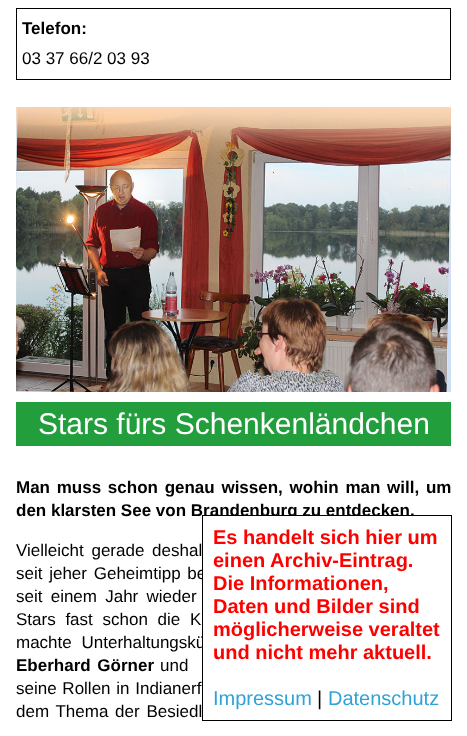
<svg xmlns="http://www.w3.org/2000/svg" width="467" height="736">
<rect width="100%" height="100%" fill="#fff"/>
<rect x="16.5" y="8.5" width="434" height="71" fill="none" stroke="#000"/>
<text x="22" y="34" style="font-family:Liberation Sans;font-size:17px;font-weight:bold;fill:#000">Telefon:</text>
<text x="22" y="64" style="font-family:Liberation Sans;font-size:17px;fill:#000">03 37 66/2 03 93</text>
<image x="16" y="107" width="435" height="285" href="media/1.png"/>
<rect x="16" y="402" width="435" height="44" fill="#229e3d"/>
<text x="38" y="434" style="font-family:Liberation Sans;font-size:30px;fill:#fff">Stars fürs Schenkenländchen</text>
<text x="16" y="493" word-spacing="2" style="font-family:Liberation Sans;font-size:17px;font-weight:bold;fill:#000">Man muss schon genau wissen, wohin man will, um</text>
<text x="16" y="516" style="font-family:Liberation Sans;font-size:17px;font-weight:bold;fill:#000">den klarsten See von Brandenburg zu entdecken.</text>
<text x="16" y="556" word-spacing="3" style="font-family:Liberation Sans;font-size:17px;fill:#000">Vielleicht gerade deshal</text>
<text x="16" y="579" word-spacing="2" style="font-family:Liberation Sans;font-size:17px;fill:#000">seit jeher Geheimtipp be</text>
<text x="16" y="602" word-spacing="3.5" style="font-family:Liberation Sans;font-size:17px;fill:#000">seit einem Jahr wieder</text>
<text x="16" y="625" word-spacing="5" style="font-family:Liberation Sans;font-size:17px;fill:#000">Stars fast schon die</text>
<text x="190" y="625" word-spacing="5" style="font-family:Liberation Sans;font-size:17px;fill:#000">K</text>
<text x="16" y="648" word-spacing="5" style="font-family:Liberation Sans;font-size:17px;fill:#000">machte Unterhaltungskü</text>
<text x="16" y="671" word-spacing="2" style="font-family:Liberation Sans;font-size:17px;font-weight:bold;fill:#000">Eberhard Görner</text>
<text x="160" y="671" style="font-family:Liberation Sans;font-size:17px;fill:#000">und</text>
<text x="16" y="694" word-spacing="1" style="font-family:Liberation Sans;font-size:17px;fill:#000">seine Rollen in Indianerf</text>
<text x="16" y="717" word-spacing="2" style="font-family:Liberation Sans;font-size:17px;fill:#000">dem Thema der Besiedl</text>
<rect x="203" y="516" width="193" height="132" fill="#fff"/>
<rect x="202.5" y="515.5" width="249" height="205" fill="none" stroke="#000"/>
<text x="213" y="544" style="font-family:Liberation Sans;font-size:20px;font-weight:bold;fill:#f00">Es handelt sich hier um</text>
<text x="213" y="567" style="font-family:Liberation Sans;font-size:20px;font-weight:bold;fill:#f00">einen Archiv-Eintrag.</text>
<text x="213" y="590" style="font-family:Liberation Sans;font-size:20px;font-weight:bold;fill:#f00">Die Informationen,</text>
<text x="213" y="613" style="font-family:Liberation Sans;font-size:20px;font-weight:bold;fill:#f00">Daten und Bilder sind</text>
<text x="213" y="636" style="font-family:Liberation Sans;font-size:20px;font-weight:bold;fill:#f00">möglicherweise veraltet</text>
<text x="213" y="659" style="font-family:Liberation Sans;font-size:20px;font-weight:bold;fill:#f00">und nicht mehr aktuell.</text>
<text x="213" y="705" style="font-family:Liberation Sans;font-size:20px;fill:#2fa2d7">Impressum</text>
<text x="317" y="705" style="font-family:Liberation Sans;font-size:20px;fill:#000">|</text>
<text x="328" y="705" style="font-family:Liberation Sans;font-size:20px;fill:#2fa2d7">Datenschutz</text>
</svg>
